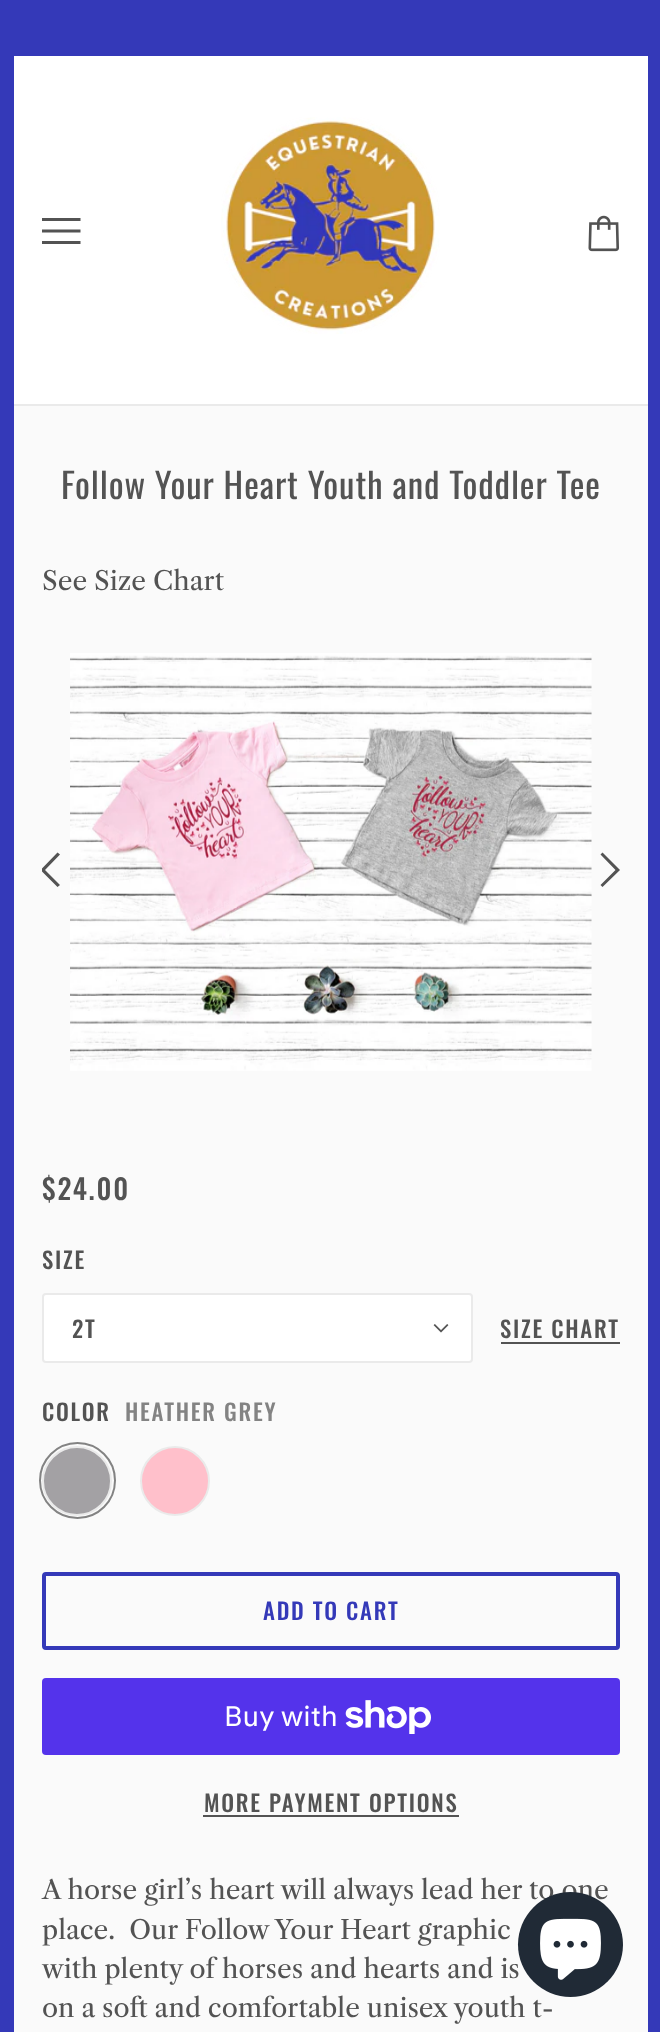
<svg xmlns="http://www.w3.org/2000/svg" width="660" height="2032">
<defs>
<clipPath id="clip1"><rect x="42" y="852" width="19" height="35"/></clipPath>
</defs>
<rect width="100%" height="100%" fill="#fff"/>
<rect x="7" y="7" width="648" height="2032" fill="none" stroke="#3439b8" stroke-width="14"/>
<rect x="14" y="14" width="634" height="42" fill="#3439b8"/>
<rect x="14" y="404" width="634" height="2" fill="#eaeaea"/>
<path d="M42 221v-3h38.5v3zm0 11.5v-3h38.5v3zm0 11.5v-3h38.5v3z" fill="#535353"/>
<image x="221" y="117" width="219" height="217" href="media/1.png"/>
<image x="588" y="215" width="31" height="37" href="media/2.png"/>
<rect x="14" y="406" width="634" height="1626" fill="#fafafa"/>
<text x="61" y="499" style="font-family:Oswald;font-size:35px;letter-spacing:0.9px;fill:#535353">Follow Your Heart Youth and Toddler Tee</text>
<text x="42" y="590" style="font-family:Libre Caslon Text;font-size:26.25px;fill:#535353">See Size Chart</text>
<image x="70" y="653" width="522" height="418" href="media/3.png"/>
<g clip-path="url(#clip1)">
<path d="M45 870l15-15.5l-2.5-2l-17 17.5l17 17l2.5-2z" fill="#535353"/>
</g>
<path d="M615.5 870l-15 15l2 2l17.5-17l-17.5-17.5l-2 2z" fill="#535353"/>
<text x="42" y="1200" style="font-family:Oswald;font-size:28px;font-weight:500;letter-spacing:1.75px;fill:#535353">$24.00</text>
<text x="42" y="1269" style="font-family:Oswald;font-size:22.75px;font-weight:500;letter-spacing:1.75px;fill:#535353">SIZE</text>
<rect x="43" y="1294" width="429" height="68" rx="3" fill="#fff" stroke="#eaeaea" stroke-width="2"/>
<text x="72" y="1338" style="font-family:Oswald;font-size:22.75px;font-weight:500;letter-spacing:1.75px;fill:#535353">2T</text>
<image x="433" y="1324" width="16" height="9" href="media/4.png"/>
<text x="500" y="1338" style="font-family:Oswald;font-size:22.75px;font-weight:500;letter-spacing:1.75px;fill:#535353">SIZE CHART</text>
<rect x="501" y="1342" width="119" height="2" fill="#535353"/>
<text x="42" y="1421" style="font-family:Oswald;font-size:22.75px;font-weight:500;letter-spacing:1.75px;fill:#535353">COLOR</text>
<text x="125" y="1421" style="font-family:Oswald;font-size:22.75px;font-weight:500;letter-spacing:1.75px;fill:#838383">HEATHER GREY</text>
<circle cx="77" cy="1481" r="34" fill="#a3a1a4" stroke="#eaeaea" stroke-width="2"/>
<circle cx="77.5" cy="1480.5" r="37.5" fill="none" stroke="#838383" stroke-width="2"/>
<circle cx="175" cy="1481" r="34" fill="#ffc0cb" stroke="#eaeaea" stroke-width="2"/>
<rect x="44" y="1574" width="574" height="74" rx="2" fill="none" stroke="#3439b8" stroke-width="4"/>
<text x="263" y="1620" style="font-family:Oswald;font-size:22.75px;font-weight:500;letter-spacing:1.75px;fill:#3439b8">ADD TO CART</text>
<rect x="42" y="1678" width="578" height="77" rx="4" fill="#5433eb"/>
<text x="224" y="1726" style="font-family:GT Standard;font-size:28px;fill:#fff">Buy with</text>
<image x="345" y="1700" width="86" height="34" href="media/5.png"/>
<text x="204" y="1812" style="font-family:Oswald;font-size:22.75px;font-weight:500;letter-spacing:1.75px;fill:#535353">MORE PAYMENT OPTIONS</text>
<rect x="203" y="1815" width="256" height="2" fill="#535353"/>
<text x="42" y="1899" style="font-family:Libre Caslon Text;font-size:26.25px;fill:#535353">A horse girl’s heart will always lead her to one</text>
<text x="42" y="1939" style="font-family:Libre Caslon Text;font-size:26.25px;fill:#535353" xml:space="preserve">place.  Our Follow Your Heart graphic</text>
<text x="42" y="1978" style="font-family:Libre Caslon Text;font-size:26.25px;fill:#535353">with plenty of horses and hearts and is</text>
<text x="42" y="2017" style="font-family:Libre Caslon Text;font-size:26.25px;fill:#535353">on a soft and comfortable unisex youth t-</text>
<circle cx="570.5" cy="1944.5" r="52.5" fill="#202a36"/>
<image x="540" y="1918" width="61" height="62" href="media/6.png"/>
</svg>
